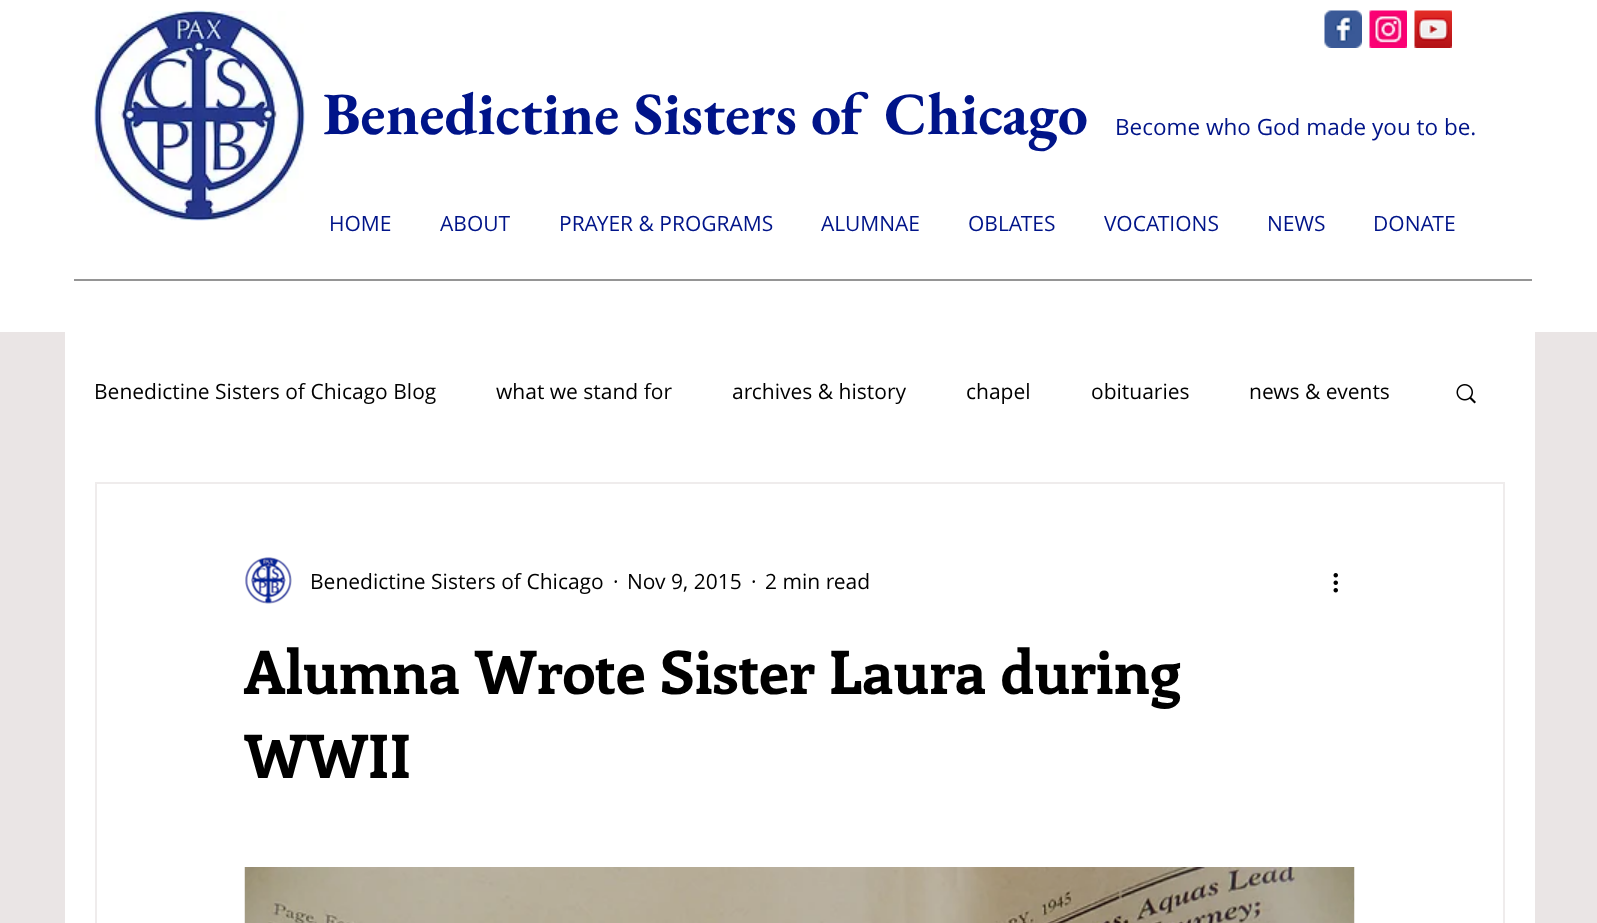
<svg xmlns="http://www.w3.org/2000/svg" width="1597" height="923">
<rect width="100%" height="100%" fill="#eae5e5"/>
<rect width="1597" height="332" fill="#fff"/>
<image x="94" y="10" width="211" height="211" href="media/1.png"/>
<image x="1324" y="10" width="38" height="38" href="media/2.png"/>
<image x="1369" y="10" width="38" height="38" href="media/3.png"/>
<image x="1414" y="10" width="38" height="38" href="media/4.png"/>
<text x="323" y="134" style="font-family:EB Garamond;font-size:60px;font-weight:bold;fill:#001489">Benedictine Sisters of Chicago</text>
<text x="1115" y="135" style="font-family:Open Sans;font-size:22.5px;fill:#001489">Become who God made you to be.</text>
<text x="329" y="231" style="font-family:Open Sans;font-size:21px;fill:#001489">HOME</text>
<text x="440" y="231" style="font-family:Open Sans;font-size:21px;fill:#001489">ABOUT</text>
<text x="559" y="231" style="font-family:Open Sans;font-size:21px;fill:#001489">PRAYER &amp; PROGRAMS</text>
<text x="821" y="231" style="font-family:Open Sans;font-size:21px;fill:#001489">ALUMNAE</text>
<text x="968" y="231" style="font-family:Open Sans;font-size:21px;fill:#001489">OBLATES</text>
<text x="1104" y="231" style="font-family:Open Sans;font-size:21px;fill:#001489">VOCATIONS</text>
<text x="1267" y="231" style="font-family:Open Sans;font-size:21px;fill:#001489">NEWS</text>
<text x="1373" y="231" style="font-family:Open Sans;font-size:21px;fill:#001489">DONATE</text>
<rect x="74" y="279" width="1458" height="2" fill="#959595"/>
<rect x="65" y="332" width="1470" height="591" fill="#fff"/>
<text x="94" y="399" style="font-family:Open Sans;font-size:21px;fill:#000">Benedictine Sisters of Chicago Blog</text>
<text x="496" y="399" style="font-family:Open Sans;font-size:21px;fill:#000">what we stand for</text>
<text x="732" y="399" style="font-family:Open Sans;font-size:21px;fill:#000">archives &amp; history</text>
<text x="966" y="399" style="font-family:Open Sans;font-size:21px;fill:#000">chapel</text>
<text x="1091" y="399" style="font-family:Open Sans;font-size:21px;fill:#000">obituaries</text>
<text x="1249" y="399" style="font-family:Open Sans;font-size:21px;fill:#000">news &amp; events</text>
<image x="1456" y="384" width="20" height="20" href="media/5.png"/>
<rect x="96" y="483" width="1408" height="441" fill="none" stroke="#efecec" stroke-width="2"/>
<image x="245" y="557" width="47" height="47" href="media/6.png"/>
<text x="310" y="589" style="font-family:Open Sans;font-size:21px;fill:#000">Benedictine Sisters of Chicago</text>
<text x="613" y="589" style="font-family:Open Sans;font-size:21px;fill:#000">·</text>
<text x="627" y="589" style="font-family:Open Sans;font-size:21px;fill:#000">Nov 9, 2015</text>
<text x="751" y="589" style="font-family:Open Sans;font-size:21px;fill:#000">·</text>
<text x="765" y="589" style="font-family:Open Sans;font-size:21px;fill:#000">2 min read</text>
<image x="1333" y="573" width="5" height="20" href="media/7.png"/>
<text x="244" y="694" style="font-family:Enriqueta;font-size:60px;font-weight:bold;fill:#000">Alumna Wrote Sister Laura during</text>
<text x="244" y="778" style="font-family:Enriqueta;font-size:60px;font-weight:bold;fill:#000">WWII</text>
<image x="244" y="867" width="1111" height="56" href="media/8.png"/>
</svg>
